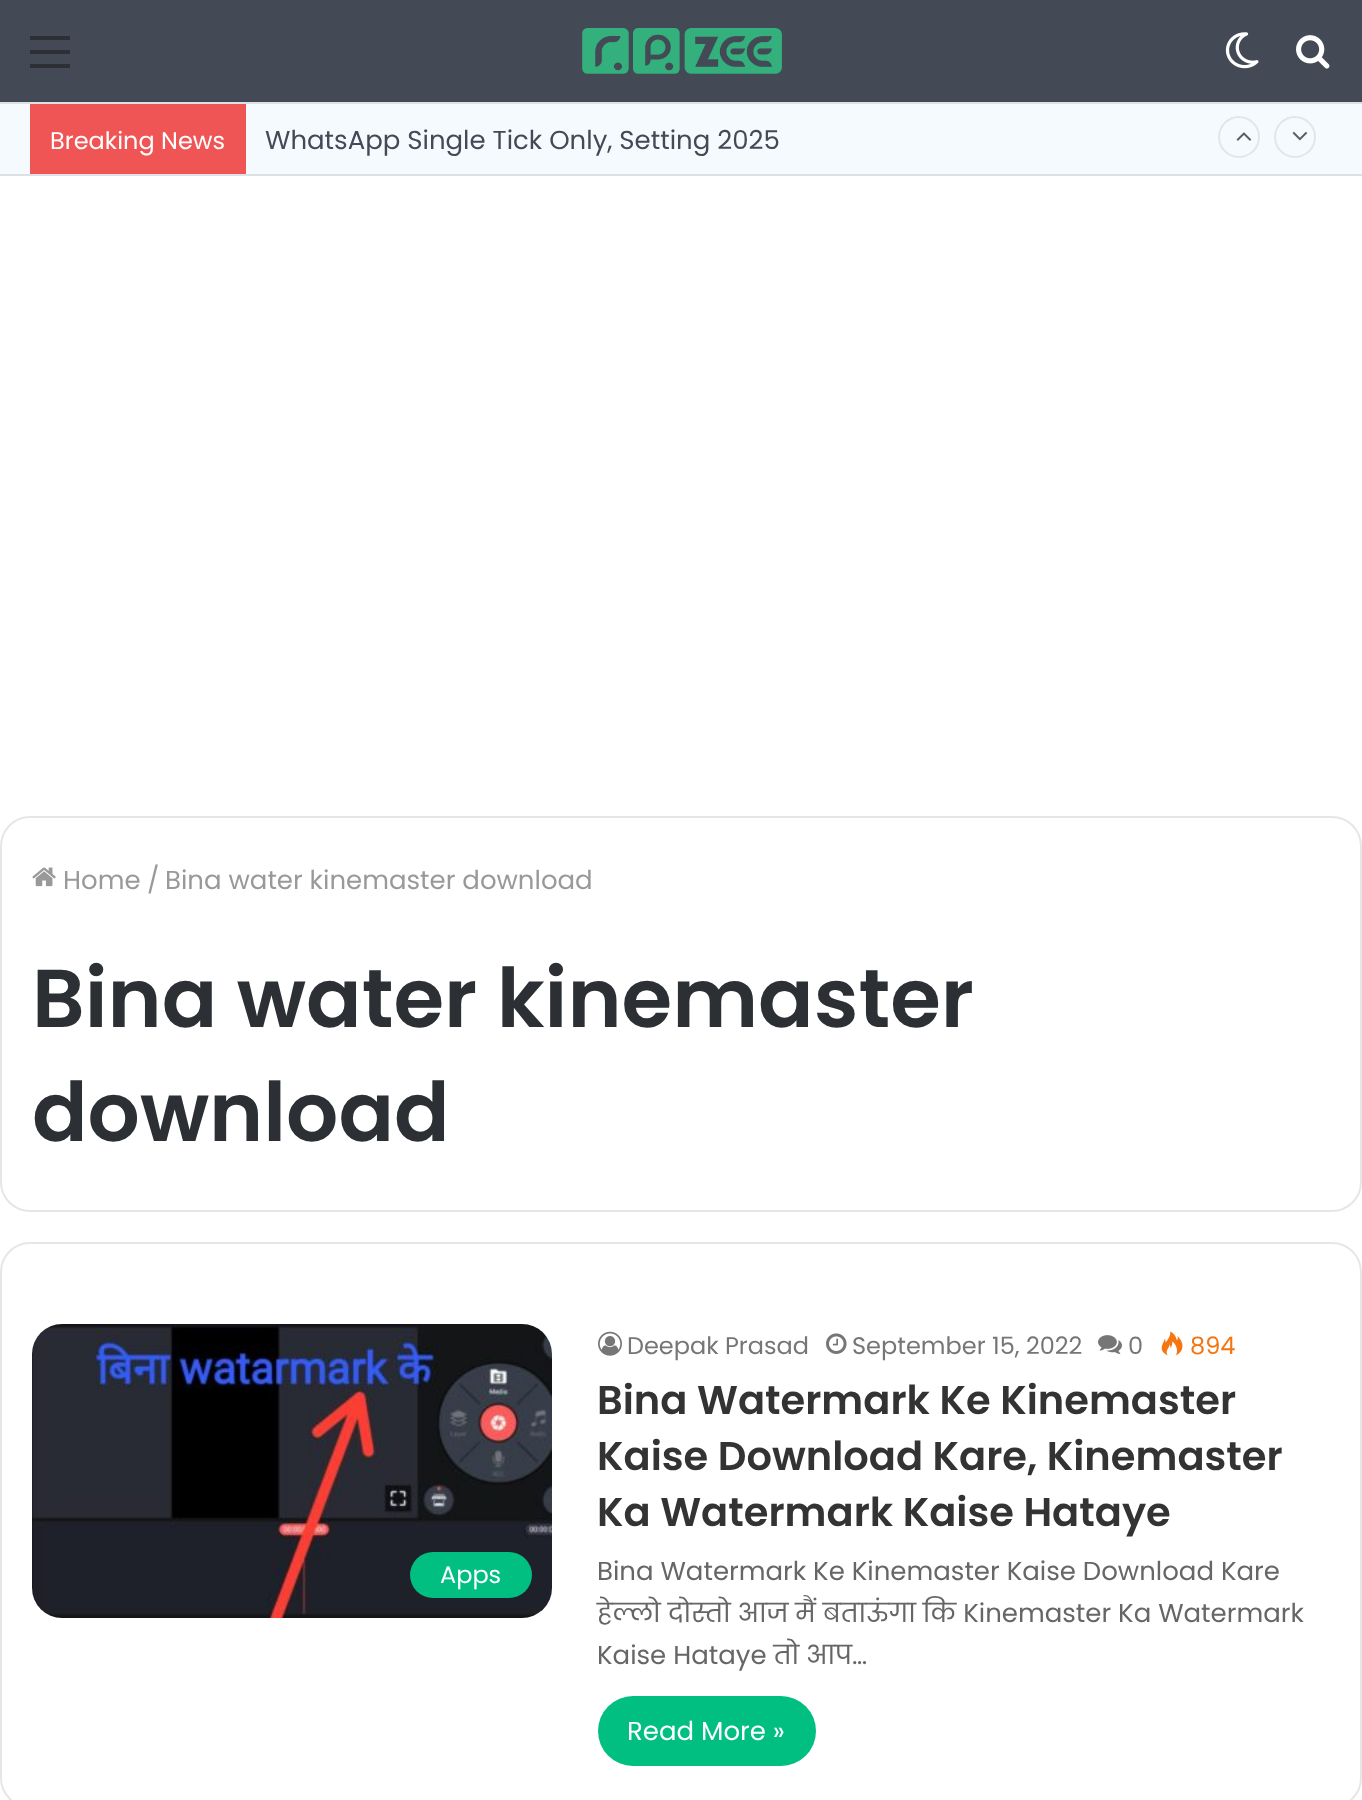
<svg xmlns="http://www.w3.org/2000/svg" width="1362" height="1800">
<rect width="100%" height="100%" fill="#fff"/>
<rect width="1362" height="102" fill="#434955"/>
<rect x="30" y="50" width="40" height="4" fill="#2c2f34"/>
<rect x="30" y="36" width="40" height="4" fill="#2c2f34"/>
<rect x="30" y="64" width="40" height="4" fill="#2c2f34"/>
<image x="582" y="28" width="200" height="46" href="media/1.png"/>
<image x="1225" y="32" width="34" height="37" href="media/2.png"/>
<image x="1296" y="35" width="34" height="34" href="media/3.png"/>
<rect y="104" width="1362" height="70" fill="#f5fafe"/>
<rect y="102" width="1362" height="2" fill="#dde1e5"/>
<rect y="174" width="1362" height="2" fill="#dde1e5"/>
<rect x="30" y="104" width="216" height="70" fill="#f05555"/>
<text x="50" y="149" style="font-family:Poppins;font-size:24px;fill:#fff">Breaking News</text>
<text x="265" y="149" style="font-family:Poppins;font-size:26px;fill:#434955">WhatsApp Single Tick Only, Setting 2025</text>
<circle cx="1239" cy="137" r="20" fill="none" stroke="#e1e6ea" stroke-width="2"/>
<image x="1236" y="132" width="16" height="9" href="media/4.png"/>
<circle cx="1295" cy="137" r="20" fill="none" stroke="#e1e6ea" stroke-width="2"/>
<image x="1292" y="131" width="16" height="10" href="media/5.png"/>
<rect x="1" y="817" width="1360" height="394" rx="29" fill="none" stroke="#e6e6e6" stroke-width="2"/>
<image x="32" y="867" width="24" height="20" href="media/6.png"/>
<text x="63" y="889" style="font-family:Poppins;font-size:26px;fill:#999">Home</text>
<text x="147" y="889" style="font-family:Poppins;font-size:26px;fill:#999">/</text>
<text x="165" y="889" style="font-family:Poppins;font-size:26px;fill:#999">Bina water kinemaster download</text>
<text x="32" y="1027" style="font-family:Poppins;font-size:82px;font-weight:600;fill:#2c2f34">Bina water kinemaster</text>
<text x="32" y="1141" style="font-family:Poppins;font-size:82px;font-weight:600;fill:#2c2f34">download</text>
<rect x="1" y="1243" width="1360" height="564" rx="29" fill="none" stroke="#e6e6e6" stroke-width="2"/>
<image x="32" y="1324" width="520" height="294" href="media/7.png"/>
<rect x="410" y="1552" width="122" height="46" rx="23" fill="#00bf80"/>
<text x="440" y="1583" style="font-family:Poppins;font-size:24px;fill:#fff">Apps</text>
<image x="598" y="1331" width="24" height="25" href="media/8.png"/>
<text x="627" y="1354" style="font-family:Poppins;font-size:24px;fill:#767676">Deepak Prasad</text>
<image x="826" y="1333" width="21" height="21" href="media/9.png"/>
<text x="852" y="1354" style="font-family:Poppins;font-size:24px;fill:#767676">September 15, 2022</text>
<image x="1098" y="1335" width="24" height="19" href="media/10.png"/>
<text x="1128" y="1354" style="font-family:Poppins;font-size:24px;fill:#767676">0</text>
<image x="1161" y="1331" width="22" height="25" href="media/11.png"/>
<text x="1190" y="1354" style="font-family:Poppins;font-size:24px;fill:#f47512">894</text>
<text x="597" y="1414" style="font-family:Poppins;font-size:40px;font-weight:600;fill:#333">Bina Watermark Ke Kinemaster</text>
<text x="597" y="1470" style="font-family:Poppins;font-size:40px;font-weight:600;fill:#333">Kaise Download Kare, Kinemaster</text>
<text x="597" y="1526" style="font-family:Poppins;font-size:40px;font-weight:600;fill:#333">Ka Watermark Kaise Hataye</text>
<text x="597" y="1580" style="font-family:Poppins;font-size:26px;fill:#666">Bina Watermark Ke Kinemaster Kaise Download Kare</text>
<text x="597" y="1622" style="font-family:Poppins;font-size:26px;fill:#666">हेल्लो दोस्तो आज मैं बताऊंगा कि Kinemaster Ka Watermark</text>
<text x="597" y="1664" style="font-family:Poppins;font-size:26px;fill:#666">Kaise Hataye तो आप…</text>
<rect x="598" y="1696" width="218" height="70" rx="35" fill="#00bf80"/>
<text x="627" y="1740" style="font-family:Poppins;font-size:26px;fill:#fff">Read More »</text>
</svg>
